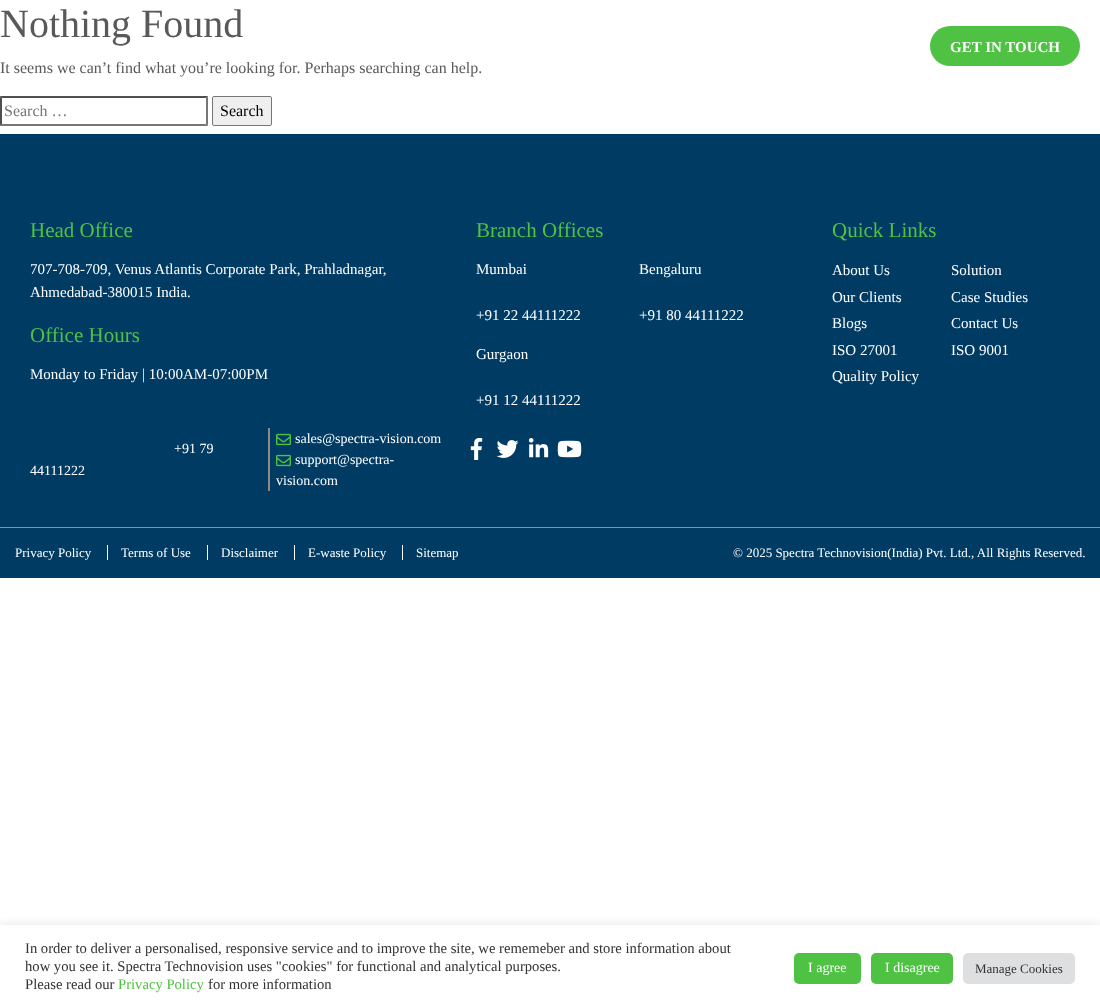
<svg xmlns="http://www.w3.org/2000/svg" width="1100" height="1007">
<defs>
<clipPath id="clip1"><rect x="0" y="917" width="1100" height="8"/></clipPath>
</defs>
<rect width="100%" height="100%" fill="#fff"/>
<text x="0" y="37" style="font-family:Liberation Serif;font-size:40px;fill:#58595b">Nothing Found</text>
<text x="0" y="73" style="font-family:Liberation Serif;font-size:16px;fill:#58595b">It seems we can’t find what you’re looking for. Perhaps searching can help.</text>
<path d="M0 96h208l-2 2h-204z" fill="#4f4f4f"/>
<path d="M208 96v30l-2-2v-26z" fill="#767676"/>
<path d="M208 126h-208l2-2h204z" fill="#767676"/>
<path d="M0 126v-30l2 2v26z" fill="#4f4f4f"/>
<text x="4" y="116" style="font-family:Liberation Serif;font-size:16px;fill:#757575">Search …</text>
<rect x="212.5" y="96.5" width="59" height="29" rx="1.5" fill="#efefef" stroke="#767676"/>
<text x="220" y="116" style="font-family:Liberation Serif;font-size:16px;fill:#000">Search</text>
<rect x="930" y="26" width="150" height="40" rx="20" fill="#4fc143"/>
<text x="950" y="52" style="font-family:Liberation Serif;font-size:15px;font-weight:bold;fill:#fff">GET IN TOUCH</text>
<rect y="134" width="1100" height="444" fill="#003b64"/>
<text x="30" y="237" style="font-family:Liberation Serif;font-size:21px;fill:#4fc143">Head Office</text>
<text x="30" y="274" style="font-family:Liberation Serif;font-size:15px;fill:#fff">707-708-709, Venus Atlantis Corporate Park, Prahladnagar,</text>
<text x="30" y="297" style="font-family:Liberation Serif;font-size:15px;fill:#fff">Ahmedabad-380015 India.</text>
<text x="30" y="342" style="font-family:Liberation Serif;font-size:21px;fill:#4fc143">Office Hours</text>
<text x="30" y="379" style="font-family:Liberation Serif;font-size:15px;fill:#fff">Monday to Friday | 10:00AM-07:00PM</text>
<text x="476" y="237" style="font-family:Liberation Serif;font-size:21px;fill:#4fc143">Branch Offices</text>
<text x="476" y="274" style="font-family:Liberation Serif;font-size:15px;fill:#fff">Mumbai</text>
<text x="476" y="320" style="font-family:Liberation Serif;font-size:15px;fill:#fff">+91 22 44111222</text>
<text x="639" y="274" style="font-family:Liberation Serif;font-size:15px;fill:#fff">Bengaluru</text>
<text x="639" y="320" style="font-family:Liberation Serif;font-size:15px;fill:#fff">+91 80 44111222</text>
<text x="476" y="359" style="font-family:Liberation Serif;font-size:15px;fill:#fff">Gurgaon</text>
<text x="476" y="405" style="font-family:Liberation Serif;font-size:15px;fill:#fff">+91 12 44111222</text>
<text x="832" y="237" style="font-family:Liberation Serif;font-size:21px;fill:#4fc143">Quick Links</text>
<text x="832" y="275" style="font-family:Liberation Serif;font-size:15px;fill:#fff">About Us</text>
<text x="951" y="275" style="font-family:Liberation Serif;font-size:15px;fill:#fff">Solution</text>
<text x="832" y="302" style="font-family:Liberation Serif;font-size:15px;fill:#fff">Our Clients</text>
<text x="951" y="302" style="font-family:Liberation Serif;font-size:15px;fill:#fff">Case Studies</text>
<text x="832" y="328" style="font-family:Liberation Serif;font-size:15px;fill:#fff">Blogs</text>
<text x="951" y="328" style="font-family:Liberation Serif;font-size:15px;fill:#fff">Contact Us</text>
<text x="832" y="355" style="font-family:Liberation Serif;font-size:15px;fill:#fff">ISO 27001</text>
<text x="951" y="355" style="font-family:Liberation Serif;font-size:15px;fill:#fff">ISO 9001</text>
<text x="832" y="381" style="font-family:Liberation Serif;font-size:15px;fill:#fff">Quality Policy</text>
<text x="174" y="453" style="font-family:Liberation Serif;font-size:14px;fill:#fff">+91 79</text>
<text x="30" y="475" style="font-family:Liberation Serif;font-size:14px;fill:#fff">44111222</text>
<rect x="268" y="428" width="2" height="63" fill="#918787"/>
<image x="276" y="433" width="15" height="13" href="media/1.png"/>
<text x="295" y="443" style="font-family:Liberation Serif;font-size:14px;fill:#fff">sales@spectra-vision.com</text>
<image x="276" y="454" width="15" height="13" href="media/1.png"/>
<text x="295" y="464" style="font-family:Liberation Serif;font-size:14px;fill:#fff">support@spectra-</text>
<text x="276" y="485" style="font-family:Liberation Serif;font-size:14px;fill:#fff">vision.com</text>
<image x="470" y="438" width="13" height="22" href="media/2.png"/>
<image x="496" y="440" width="23" height="18" href="media/3.png"/>
<image x="528" y="438" width="21" height="20" href="media/4.png"/>
<image x="557" y="440" width="25" height="18" href="media/5.png"/>
<rect y="527" width="1100" height="1" fill="#4fc143"/>
<text x="15" y="557" style="font-family:Liberation Serif;font-size:13px;fill:#fff">Privacy Policy</text>
<rect x="107" y="545" width="1" height="15" fill="#fff"/>
<text x="121" y="557" style="font-family:Liberation Serif;font-size:13px;fill:#fff">Terms of Use</text>
<rect x="207" y="545" width="1" height="15" fill="#fff"/>
<text x="221" y="557" style="font-family:Liberation Serif;font-size:13px;fill:#fff">Disclaimer</text>
<rect x="294" y="545" width="1" height="15" fill="#fff"/>
<text x="308" y="557" style="font-family:Liberation Serif;font-size:13px;fill:#fff">E-waste Policy</text>
<rect x="402" y="545" width="1" height="15" fill="#fff"/>
<text x="416" y="557" style="font-family:Liberation Serif;font-size:13px;fill:#fff">Sitemap</text>
<text x="733" y="557" style="font-family:Liberation Serif;font-size:13px;fill:#fff">© 2025 Spectra Technovision(India) Pvt. Ltd., All Rights Reserved.</text>
<g clip-path="url(#clip1)">
<rect y="924" width="1100" height="82" fill="#acabab4d" filter="blur(5px)"/>
</g>
<text x="25" y="953" style="font-family:Liberation Serif;font-size:14.65px;fill:#333">In order to deliver a personalised, responsive service and to improve the site, we rememeber and store information about</text>
<text x="25" y="971" style="font-family:Liberation Serif;font-size:14.65px;fill:#333">how you see it. Spectra Technovision uses "cookies" for functional and analytical purposes.</text>
<text x="25" y="989" style="font-family:Liberation Serif;font-size:14.65px;fill:#333">Please read our</text>
<text x="118" y="989" style="font-family:Liberation Serif;font-size:14.65px;fill:#4fc143">Privacy Policy</text>
<text x="208" y="989" style="font-family:Liberation Serif;font-size:14.65px;fill:#333">for more information</text>
<rect x="794" y="953" width="67" height="31" rx="5" fill="#4fc143"/>
<text x="808" y="972" style="font-family:Liberation Serif;font-size:14px;fill:#fff">I agree</text>
<rect x="871" y="953" width="82" height="31" rx="5" fill="#4fc143"/>
<text x="885" y="972" style="font-family:Liberation Serif;font-size:14px;fill:#fff">I disagree</text>
<rect x="963" y="953" width="112" height="31" rx="5" fill="#dedfe0"/>
<text x="975" y="973" style="font-family:Liberation Serif;font-size:13px;fill:#333">Manage Cookies</text>
</svg>
